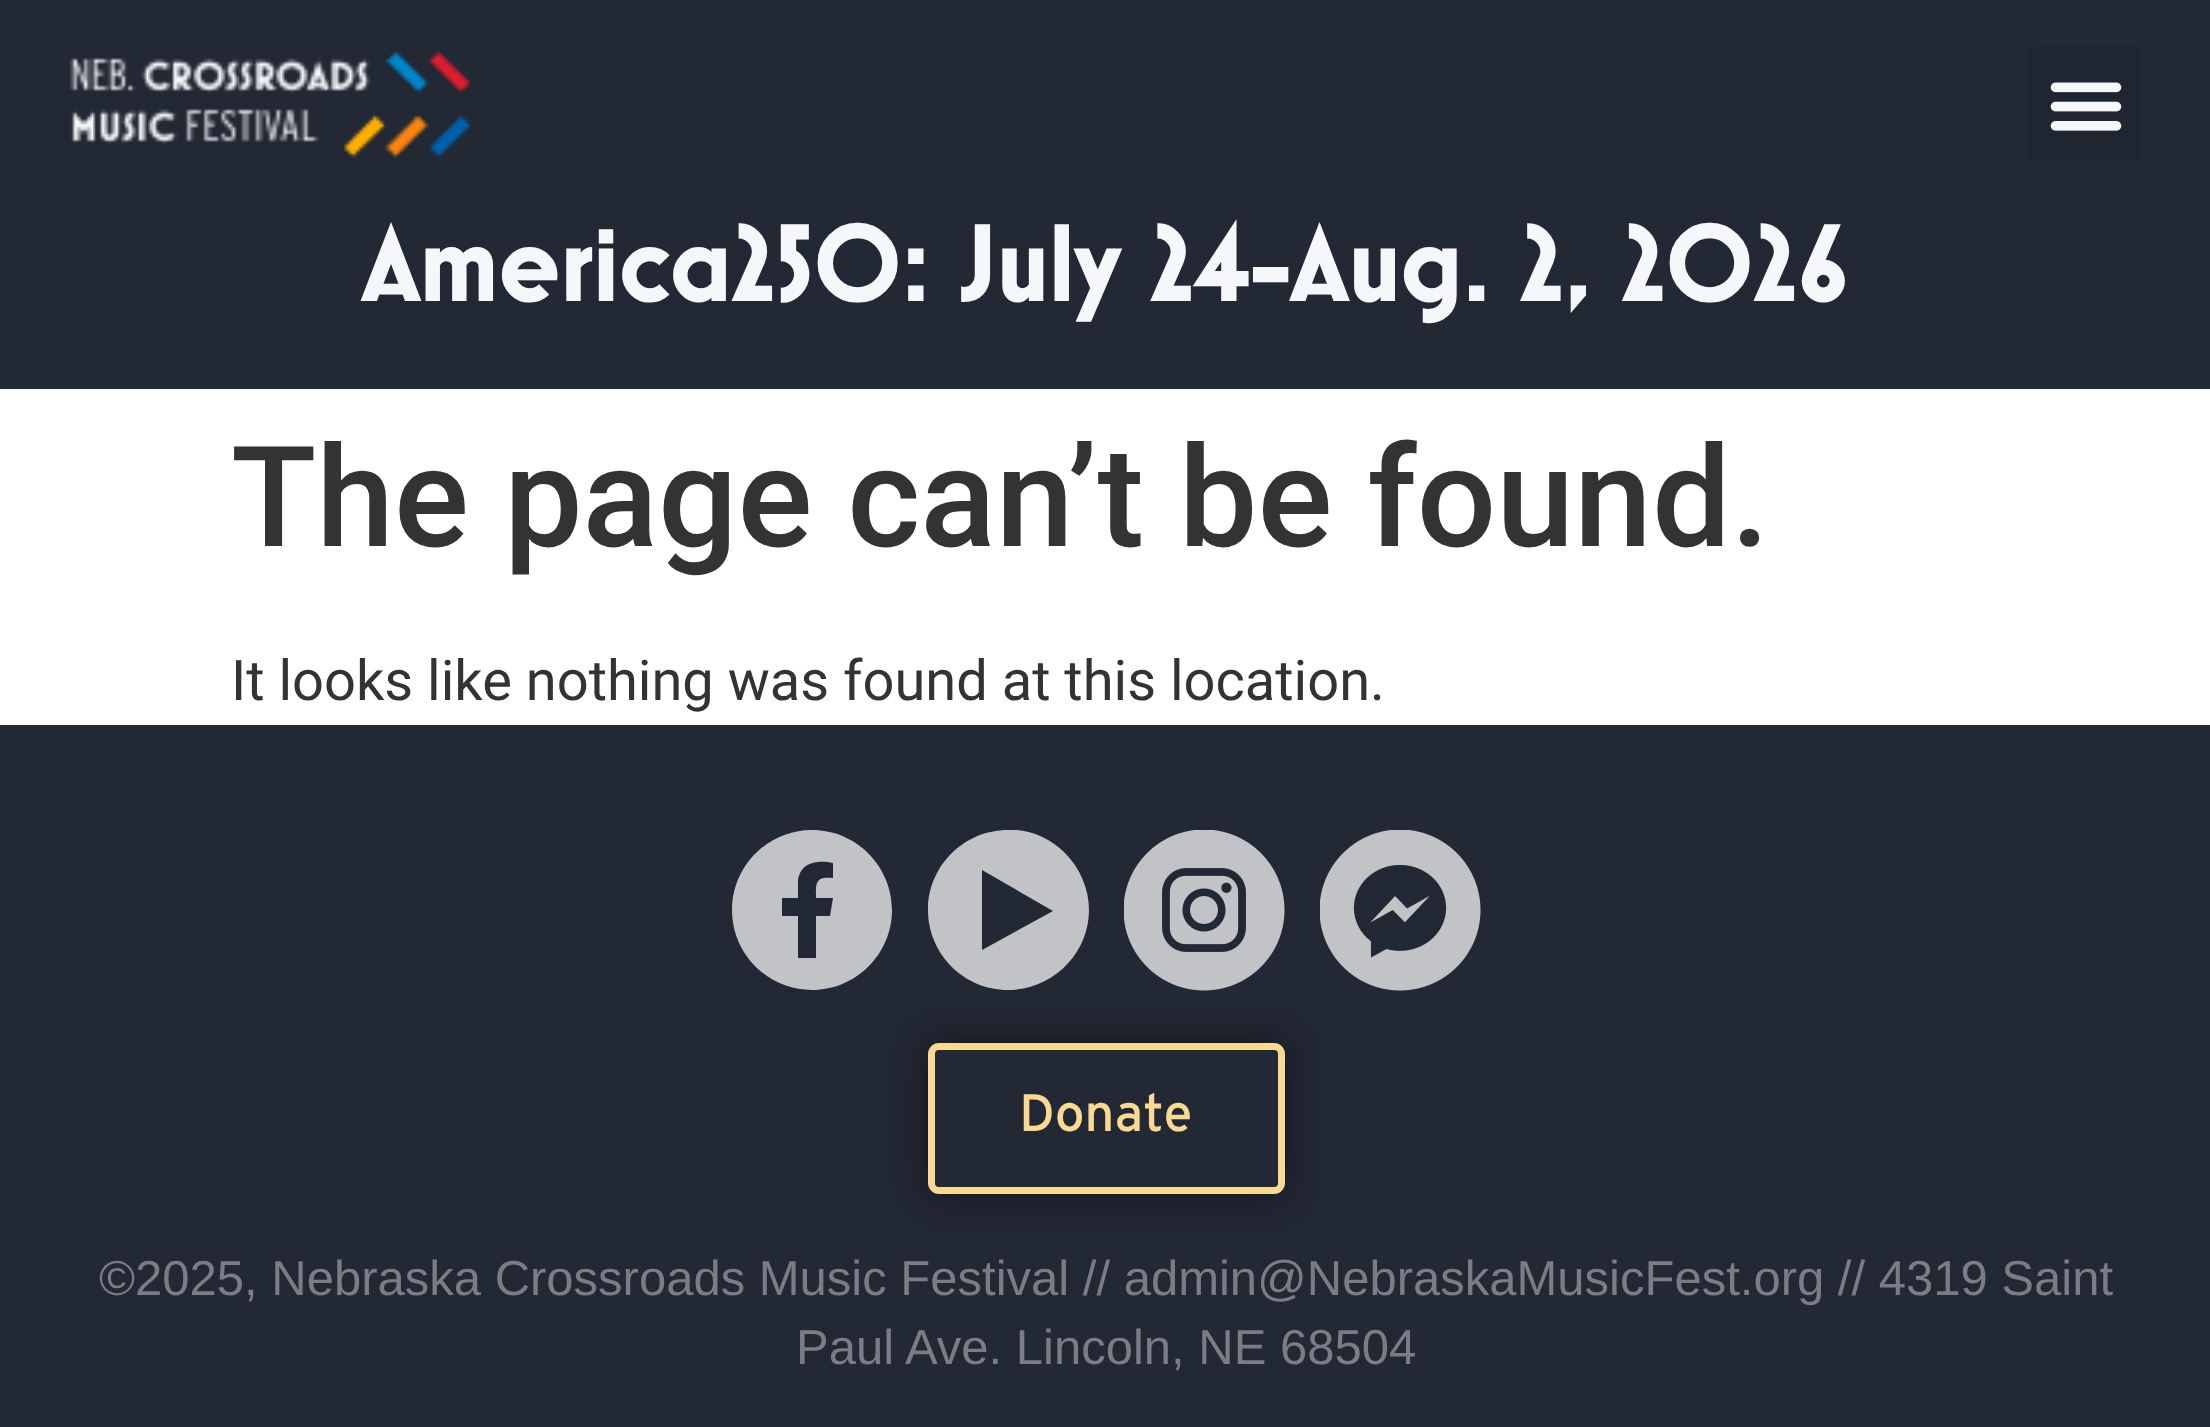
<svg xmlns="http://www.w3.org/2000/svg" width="2210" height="1427">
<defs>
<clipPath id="clip1"><rect x="928" y="830" width="161" height="161"/></clipPath>
</defs>
<rect width="100%" height="100%" fill="#fff"/>
<rect width="2210" height="389" fill="#222834"/>
<image x="70" y="51" width="402" height="107" href="media/1.png"/>
<rect x="2027" y="46" width="115" height="115" rx="11" fill="#202631"/>
<image x="2050" y="82" width="72" height="49" href="media/2.png"/>
<text x="362" y="301" style="font-family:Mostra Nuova;font-size:112px;font-weight:bold;fill:#f5f7fa">America250: July 24-Aug. 2, 2026</text>
<text x="231" y="546" style="font-family:Roboto;font-size:140px;font-weight:500;fill:#333">The page can’t be found.</text>
<text x="231" y="700" style="font-family:Roboto;font-size:56px;fill:#333">It looks like nothing was found at this location.</text>
<rect y="725" width="2210" height="702" fill="#222834"/>
<path d="M812 830c-44 0-80 36-80 80c0 44 36 80 80 80c44 0 80-36 80-80c0-44-36-80-80-80zm21 48c-18-2-17 5-17 20h17l-3 18h-14v42h-18v-42h-16v-18h16v-18c3-19 21-20 35-17z" fill="#c1c3c7"/>
<g clip-path="url(#clip1)">
<path d="M1008 830c-44 0-80 36-80 80c0 44 36 80 80 80c44 0 81-36 81-80c0-21-9-42-24-57c-15-15-36-24-57-23zm-26 120v-80l71 41z" fill="#c1c3c7"/>
</g>
<image x="1124" y="830" width="161" height="161" href="media/3.png"/>
<image x="1320" y="830" width="161" height="161" href="media/4.png"/>
<rect x="928" y="1043" width="357" height="151" rx="11" fill="#00000080" filter="blur(17.5px)"/>
<rect x="931.5" y="1046.5" width="350" height="144" rx="7.5" fill="#222834" stroke="#fad993" stroke-width="7"/>
<text x="1019" y="1131" style="font-family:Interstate;font-size:52.5px;fill:#fad993">Donate</text>
<text x="99" y="1295" style="font-family:Liberation Sans;font-size:49px;fill:#787d86">©2025, Nebraska Crossroads Music Festival // admin@NebraskaMusicFest.org // 4319 Saint</text>
<text x="796" y="1364" style="font-family:Liberation Sans;font-size:49px;fill:#787d86">Paul Ave. Lincoln, NE 68504</text>
</svg>
